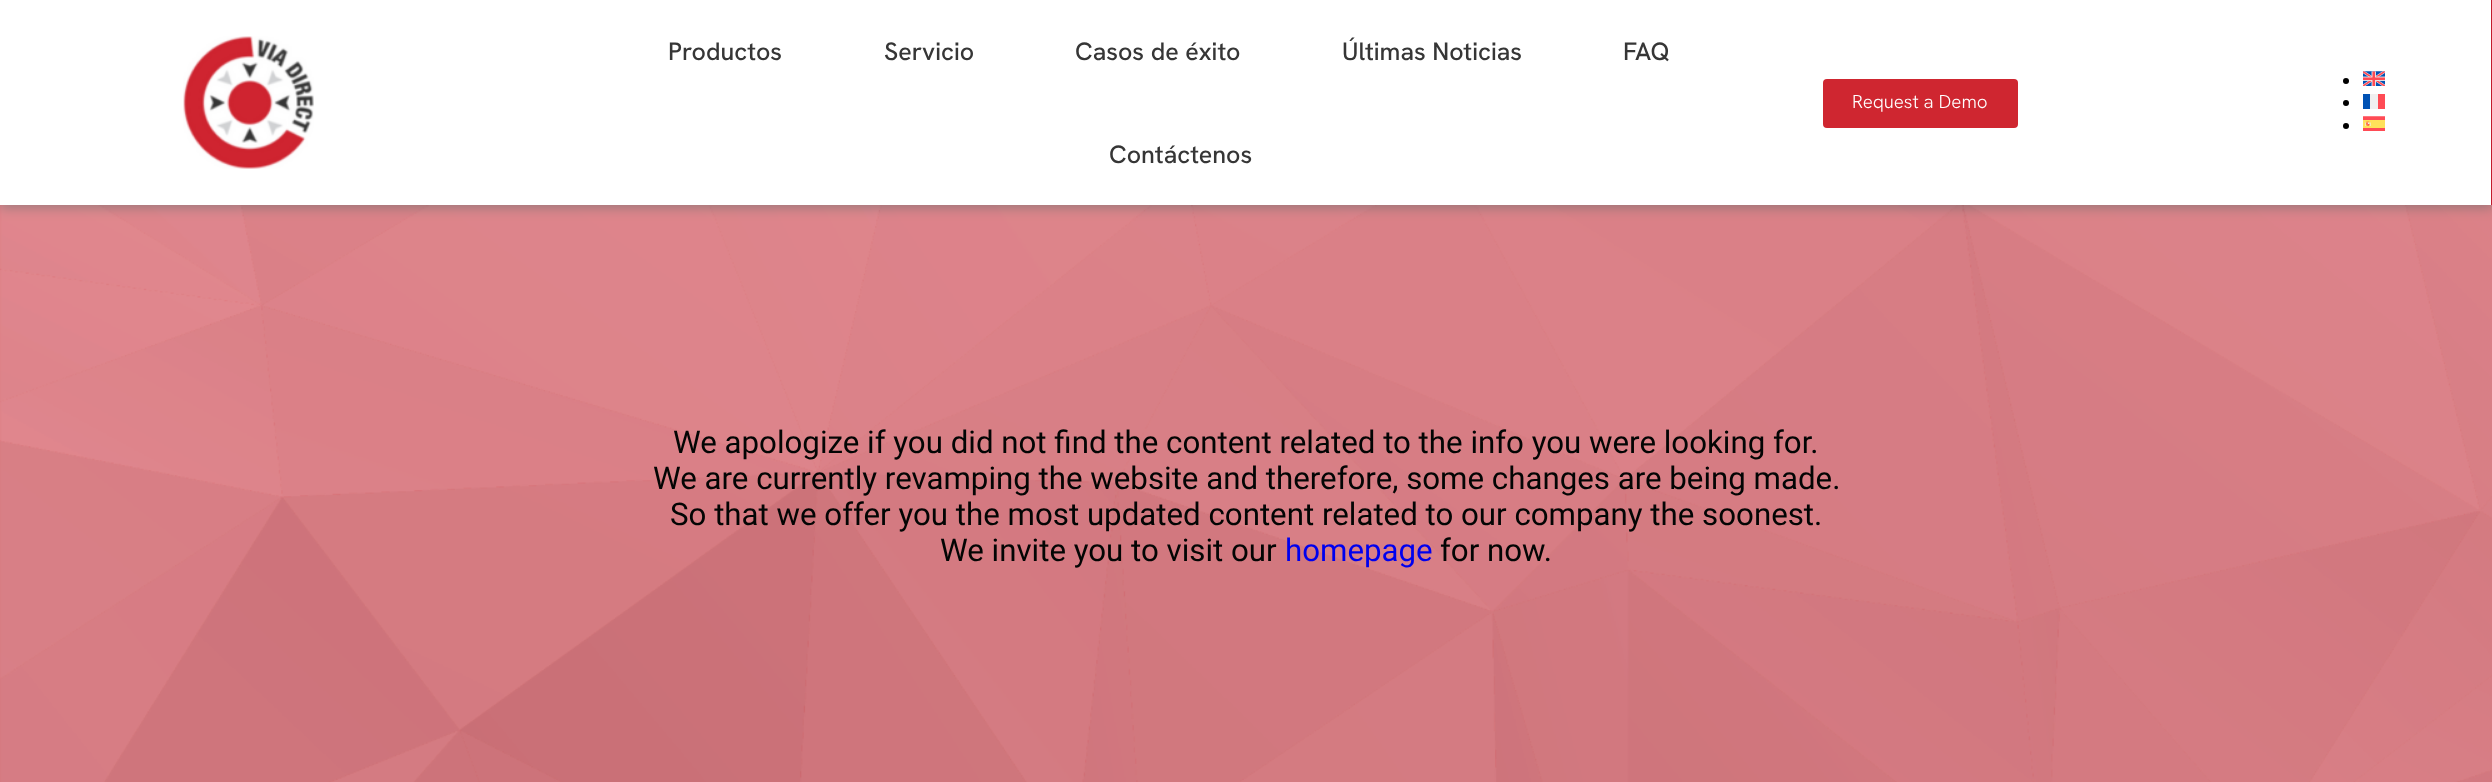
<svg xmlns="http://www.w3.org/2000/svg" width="2492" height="782">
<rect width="100%" height="100%" fill="#cf2630"/>
<rect y="3" width="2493" height="205" fill="#00000099" filter="blur(6px)"/>
<rect x="2491" width="1" height="205" fill="#c31a2c"/>
<rect width="2491" height="205" fill="#fff"/>
<image x="183" y="36" width="131" height="133" href="media/1.png"/>
<text x="668" y="60" style="font-family:Hanken Grotesk;font-size:25px;font-weight:500;fill:#363636">Productos</text>
<text x="884" y="60" style="font-family:Hanken Grotesk;font-size:25px;font-weight:500;fill:#363636">Servicio</text>
<text x="1075" y="60" style="font-family:Hanken Grotesk;font-size:25px;font-weight:500;fill:#363636">Casos de éxito</text>
<text x="1342" y="60" style="font-family:Hanken Grotesk;font-size:25px;font-weight:500;fill:#363636">Últimas Noticias</text>
<text x="1623" y="60" style="font-family:Hanken Grotesk;font-size:25px;font-weight:500;fill:#363636">FAQ</text>
<text x="1109" y="163" style="font-family:Hanken Grotesk;font-size:25px;font-weight:500;fill:#363636">Contáctenos</text>
<rect x="1823" y="79" width="195" height="49" rx="4" fill="#cf2630"/>
<text x="1852" y="108" style="font-family:Hanken Grotesk;font-size:18.75px;font-weight:300;fill:#fff">Request a Demo</text>
<circle cx="2346" cy="81" r="3" fill="#000"/>
<image x="2363" y="71" width="22" height="15" href="media/2.png"/>
<circle cx="2346" cy="103" r="3" fill="#000"/>
<rect x="2363" y="94" width="7" height="15" fill="#0052b4"/>
<rect x="2370" y="94" width="8" height="15" fill="#f0f0f0"/>
<rect x="2378" y="94" width="7" height="15" fill="#ff4b55"/>
<circle cx="2346" cy="126" r="3" fill="#000"/>
<image x="2363" y="116" width="22" height="15" href="media/3.png"/>
<image x="0" y="205" width="2492" height="577" href="media/4.png"/>
<text x="673" y="453" style="font-family:Roboto;font-size:31.25px;fill:#030504">We apologize if you did not find the content related to the info you were looking for.</text>
<text x="653" y="489" style="font-family:Roboto;font-size:31.25px;fill:#030504">We are currently revamping the website and therefore, some changes are being made.</text>
<text x="670" y="525" style="font-family:Roboto;font-size:31.25px;fill:#030504">So that we offer you the most updated content related to our company the soonest.</text>
<text x="940" y="561" style="font-family:Roboto;font-size:31.25px;fill:#030504">We invite you to visit our</text>
<text x="1285" y="561" style="font-family:Roboto;font-size:31.25px;fill:#00e">homepage</text>
<text x="1440" y="561" style="font-family:Roboto;font-size:31.25px;fill:#030504">for now.</text>
</svg>
